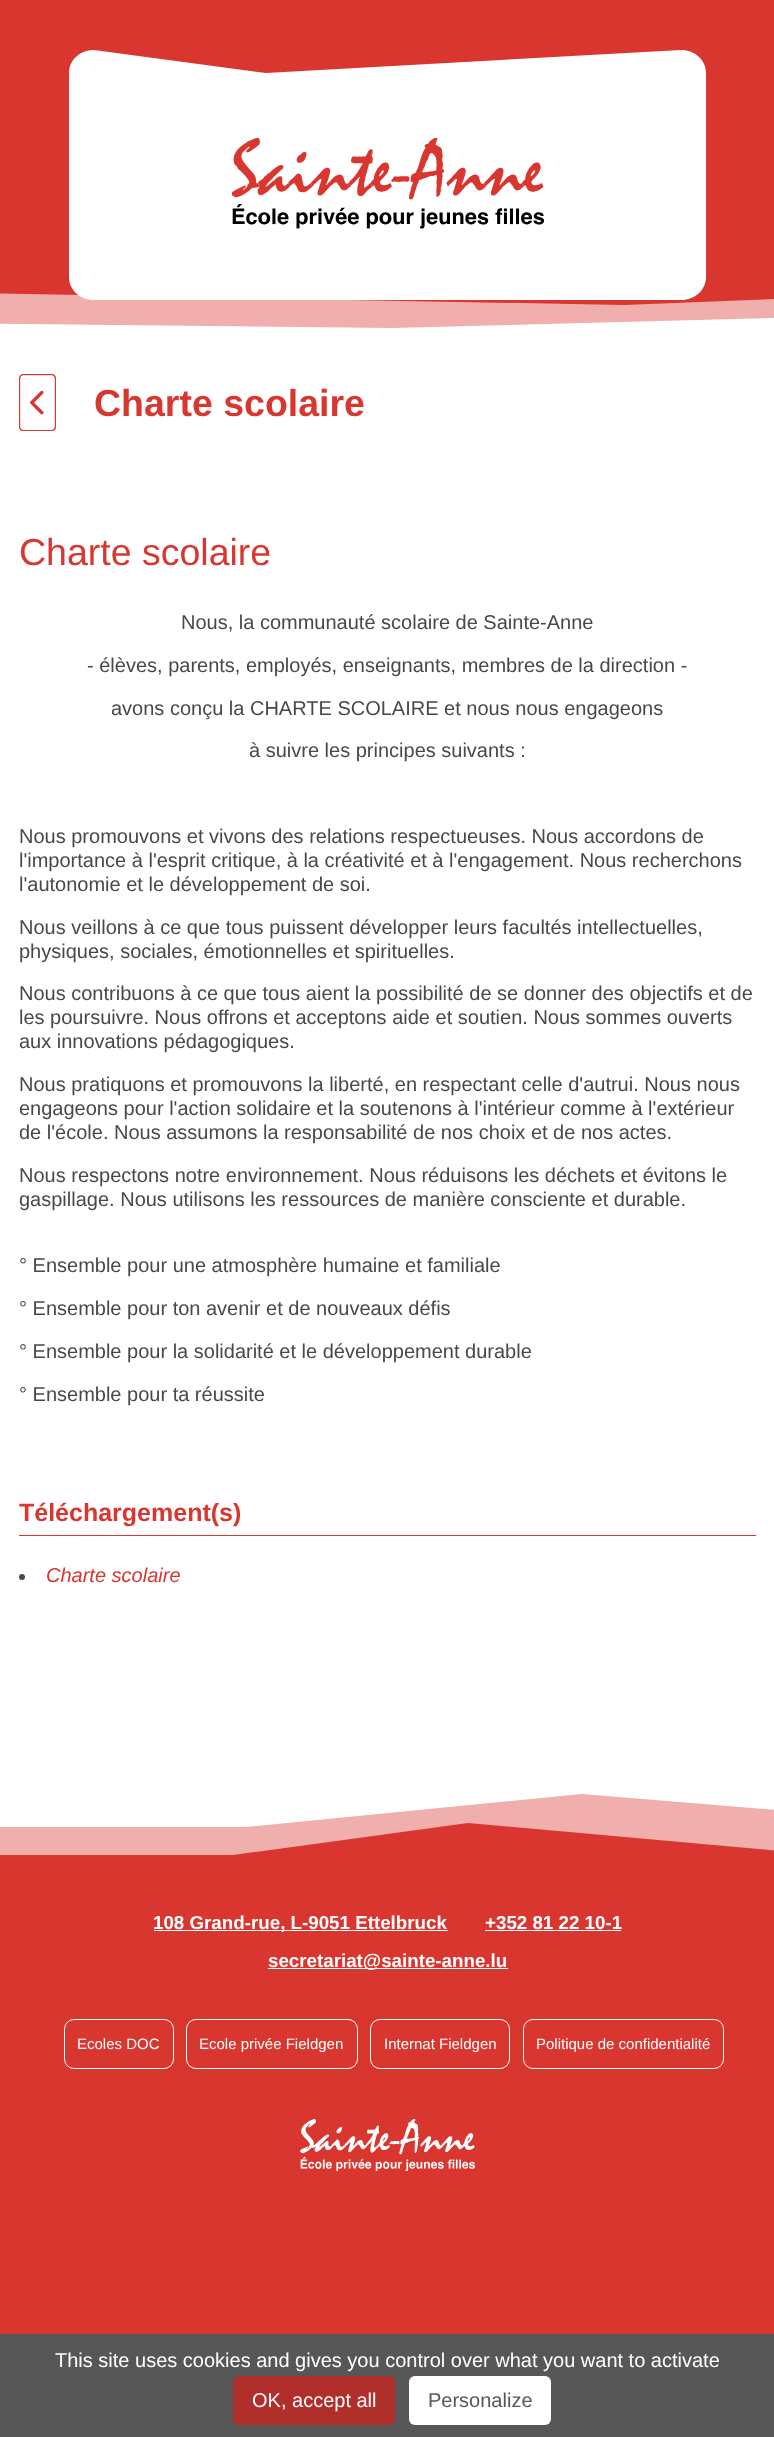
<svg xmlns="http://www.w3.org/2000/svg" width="774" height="2437">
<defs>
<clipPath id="clip1"><rect y="250" width="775" height="78"/></clipPath>
<clipPath id="clip2"><rect y="1794" width="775" height="62"/></clipPath>
</defs>
<rect width="100%" height="100%" fill="#d93630"/>
<rect y="317" width="774" height="1510" fill="#fff"/>
<g clip-path="url(#clip1)">
<path d="M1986 286l-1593 42l-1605-17v-236l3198-1z" fill="#f0afac"/>
<path d="M-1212 73h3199v178l-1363 54l-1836-34z" fill="#d93630"/>
</g>
<path d="M69 277v-204c0-13 11-23 25-23l172 23l415-23c14 0 25 10 25 23v204c0 13-11 23-25 23h-587c-14 0-25-10-25-23z" fill="#fff"/>
<image x="232" y="138" width="312" height="91" href="media/1.png"/>
<image x="19" y="374" width="37" height="57" href="media/2.png"/>
<text x="94" y="416" style="font-family:Liberation Sans;font-size:37.5px;font-weight:bold;fill:#d93630">Charte scolaire</text>
<text x="19" y="565" style="font-family:Liberation Sans;font-size:37.5px;fill:#d93630">Charte scolaire</text>
<text x="181" y="629" style="font-family:Liberation Sans;font-size:20px;fill:#484848">Nous, la communauté scolaire de Sainte-Anne</text>
<text x="87" y="672" style="font-family:Liberation Sans;font-size:20px;fill:#484848">- élèves, parents, employés, enseignants, membres de la direction -</text>
<text x="111" y="715" style="font-family:Liberation Sans;font-size:20px;fill:#484848">avons conçu la CHARTE SCOLAIRE et nous nous engageons</text>
<text x="249" y="757" style="font-family:Liberation Sans;font-size:20px;fill:#484848">à suivre les principes suivants :</text>
<text x="19" y="843" style="font-family:Liberation Sans;font-size:20px;fill:#484848">Nous promouvons et vivons des relations respectueuses. Nous accordons de</text>
<text x="19" y="867" style="font-family:Liberation Sans;font-size:20px;fill:#484848">l'importance à l'esprit critique, à la créativité et à l'engagement. Nous recherchons</text>
<text x="19" y="891" style="font-family:Liberation Sans;font-size:20px;fill:#484848">l'autonomie et le développement de soi.</text>
<text x="19" y="934" style="font-family:Liberation Sans;font-size:20px;fill:#484848">Nous veillons à ce que tous puissent développer leurs facultés intellectuelles,</text>
<text x="19" y="958" style="font-family:Liberation Sans;font-size:20px;fill:#484848">physiques, sociales, émotionnelles et spirituelles.</text>
<text x="19" y="1000" style="font-family:Liberation Sans;font-size:20px;fill:#484848">Nous contribuons à ce que tous aient la possibilité de se donner des objectifs et de</text>
<text x="19" y="1024" style="font-family:Liberation Sans;font-size:20px;fill:#484848">les poursuivre. Nous offrons et acceptons aide et soutien. Nous sommes ouverts</text>
<text x="19" y="1048" style="font-family:Liberation Sans;font-size:20px;fill:#484848">aux innovations pédagogiques.</text>
<text x="19" y="1091" style="font-family:Liberation Sans;font-size:20px;fill:#484848">Nous pratiquons et promouvons la liberté, en respectant celle d'autrui. Nous nous</text>
<text x="19" y="1115" style="font-family:Liberation Sans;font-size:20px;fill:#484848">engageons pour l'action solidaire et la soutenons à l'intérieur comme à l'extérieur</text>
<text x="19" y="1139" style="font-family:Liberation Sans;font-size:20px;fill:#484848">de l'école. Nous assumons la responsabilité de nos choix et de nos actes.</text>
<text x="19" y="1182" style="font-family:Liberation Sans;font-size:20px;fill:#484848">Nous respectons notre environnement. Nous réduisons les déchets et évitons le</text>
<text x="19" y="1206" style="font-family:Liberation Sans;font-size:20px;fill:#484848">gaspillage. Nous utilisons les ressources de manière consciente et durable.</text>
<text x="19" y="1272" style="font-family:Liberation Sans;font-size:20px;fill:#484848">° Ensemble pour une atmosphère humaine et familiale</text>
<text x="19" y="1315" style="font-family:Liberation Sans;font-size:20px;fill:#484848">° Ensemble pour ton avenir et de nouveaux défis</text>
<text x="19" y="1358" style="font-family:Liberation Sans;font-size:20px;fill:#484848">° Ensemble pour la solidarité et le développement durable</text>
<text x="19" y="1401" style="font-family:Liberation Sans;font-size:20px;fill:#484848">° Ensemble pour ta réussite</text>
<rect x="19" y="1535" width="737" height="1" fill="#d93630"/>
<text x="19" y="1521" style="font-family:Liberation Sans;font-size:25px;font-weight:bold;fill:#d93630">Téléchargement(s)</text>
<circle cx="22" cy="1577" r="3" fill="#484848"/>
<text x="46" y="1582" style="font-family:Liberation Sans;font-size:20px;font-style:italic;fill:#d93630">Charte scolaire</text>
<g clip-path="url(#clip2)">
<path d="M-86 1827h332l336-33l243 20v205h-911z" fill="#f0afac"/>
<path d="M-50 1855h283l235-32l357 32v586h-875z" fill="#d93630"/>
</g>
<rect x="154" y="1930" width="294" height="1" fill="#fff"/>
<text x="153" y="1929" style="font-family:Liberation Sans;font-size:18.75px;font-weight:bold;fill:#fff">108 Grand-rue, L-9051 Ettelbruck</text>
<text x="485" y="1929" style="font-family:Liberation Sans;font-size:18.75px;font-weight:bold;fill:#fff">+352 81 22 10-1</text>
<rect x="485" y="1930" width="136" height="1" fill="#fff"/>
<rect x="268" y="1968" width="240" height="1" fill="#fff"/>
<text x="268" y="1967" style="font-family:Liberation Sans;font-size:18.75px;font-weight:bold;fill:#fff">secretariat@sainte-anne.lu</text>
<rect x="64.5" y="2019.5" width="109" height="49" rx="9.5" fill="none" stroke="#fff"/>
<text x="77" y="2049" style="font-family:Liberation Sans;font-size:15px;fill:#fff">Ecoles DOC</text>
<rect x="186.5" y="2019.5" width="171" height="49" rx="9.5" fill="none" stroke="#fff"/>
<text x="199" y="2049" style="font-family:Liberation Sans;font-size:15px;fill:#fff">Ecole privée Fieldgen</text>
<rect x="370.5" y="2019.5" width="139" height="49" rx="9.5" fill="none" stroke="#fff"/>
<text x="384" y="2049" style="font-family:Liberation Sans;font-size:15px;fill:#fff">Internat Fieldgen</text>
<rect x="523.5" y="2019.5" width="200" height="49" rx="9.5" fill="none" stroke="#fff"/>
<text x="536" y="2049" style="font-family:Liberation Sans;font-size:15px;fill:#fff">Politique de confidentialité</text>
<image x="300" y="2119" width="175" height="52" href="media/3.png"/>
<rect y="2334" width="774" height="103" fill="#565756"/>
<text x="55" y="2367" style="font-family:Liberation Sans;font-size:20px;fill:#fff">This site uses cookies and gives you control over what you want to activate</text>
<rect x="233" y="2376" width="162" height="49" rx="6" fill="#b12f2a"/>
<text x="252" y="2407" style="font-family:Liberation Sans;font-size:20px;fill:#fff">OK, accept all</text>
<rect x="409" y="2376" width="142" height="49" rx="6" fill="#fff"/>
<text x="428" y="2407" style="font-family:Liberation Sans;font-size:20px;fill:#565756">Personalize</text>
</svg>
